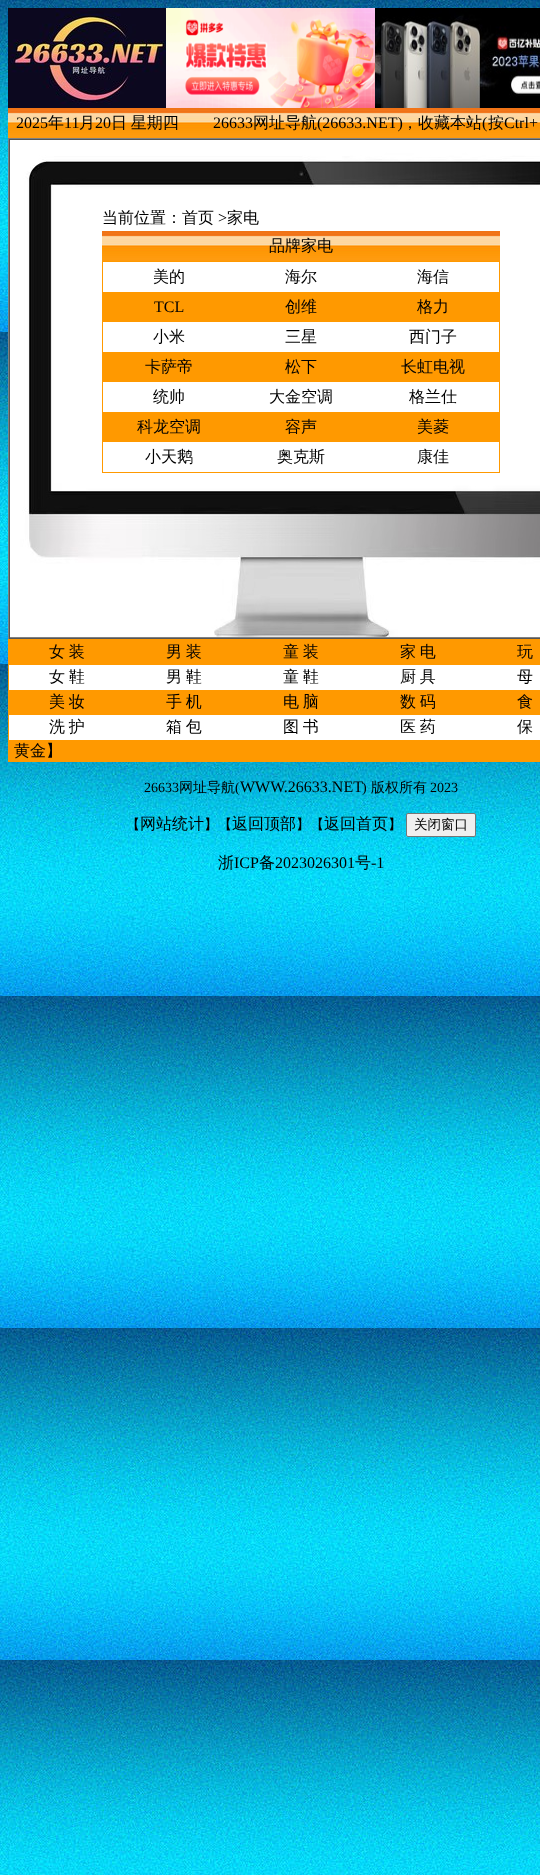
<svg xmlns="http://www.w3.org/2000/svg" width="540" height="1875">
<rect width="100%" height="100%" fill="#fff"/>
<image x="0" y="0" width="540" height="1875" href="media/1.png"/>
<image x="8" y="8" width="158" height="100" href="media/2.png"/>
<image x="166" y="8" width="209" height="100" href="media/3.png"/>
<image x="375" y="8" width="165" height="100" href="media/4.png"/>
<image x="8" y="108" width="8" height="30" href="media/5.png"/>
<image x="16" y="108" width="176" height="30" href="media/6.png"/>
<text x="16" y="128" style="font-family:Liberation Serif;font-size:16px;fill:#000">2025</text>
<text x="48" y="128" style="font-family:WenQuanYi Zen Hei;font-size:16px;font-weight:500;fill:#000">年</text>
<text x="64" y="128" style="font-family:Liberation Serif;font-size:16px;fill:#000">11</text>
<text x="79" y="128" style="font-family:WenQuanYi Zen Hei;font-size:16px;font-weight:500;fill:#000">月</text>
<text x="95" y="128" style="font-family:Liberation Serif;font-size:16px;fill:#000">20</text>
<text x="111" y="128" word-spacing="-1" style="font-family:WenQuanYi Zen Hei;font-size:16px;font-weight:500;fill:#000">日 星期四</text>
<image x="192" y="108" width="348" height="30" href="media/7.png"/>
<text x="213" y="128" style="font-family:Liberation Serif;font-size:16px;fill:#000">26633</text>
<text x="253" y="128" style="font-family:WenQuanYi Zen Hei;font-size:16px;font-weight:500;fill:#000">网址导航</text>
<text x="317" y="128" style="font-family:Liberation Serif;font-size:16px;fill:#000">(26633.NET)</text>
<text x="402" y="128" style="font-family:WenQuanYi Zen Hei;font-size:16px;font-weight:500;fill:#000">，收藏本站</text>
<text x="482" y="128" style="font-family:Liberation Serif;font-size:16px;fill:#000">(</text>
<text x="488" y="128" style="font-family:WenQuanYi Zen Hei;font-size:16px;font-weight:500;fill:#000">按</text>
<text x="504" y="128" style="font-family:Liberation Serif;font-size:16px;fill:#000">Ctrl+</text>
<rect x="8" y="138" width="532" height="1" fill="#808080"/>
<rect x="8" y="638" width="532" height="1" fill="#555"/>
<rect x="8" y="138" width="1" height="501" fill="#808080"/>
<image x="10" y="140" width="530" height="497" href="media/8.png"/>
<rect x="9" y="139" width="531" height="1" fill="#555"/>
<rect x="9" y="637" width="531" height="1" fill="#808080"/>
<rect x="9" y="139" width="1" height="499" fill="#555"/>
<text x="102" y="223" style="font-family:WenQuanYi Zen Hei;font-size:16px;font-weight:500;fill:#000">当前位置：首页</text>
<text x="218" y="223" style="font-family:Liberation Serif;font-size:16px;fill:#000">&gt;</text>
<text x="227" y="223" style="font-family:WenQuanYi Zen Hei;font-size:16px;font-weight:500;fill:#000">家电</text>
<image x="102" y="231" width="398" height="30" href="media/9.png"/>
<text x="269" y="251" style="font-family:WenQuanYi Zen Hei;font-size:16px;font-weight:500;fill:#000">品牌家电</text>
<rect x="102" y="261" width="398" height="212" fill="#f90"/>
<rect x="103" y="262" width="396" height="30" fill="#fff"/>
<text x="153" y="282" style="font-family:WenQuanYi Zen Hei;font-size:16px;font-weight:500;fill:#000">美的</text>
<text x="285" y="282" style="font-family:WenQuanYi Zen Hei;font-size:16px;font-weight:500;fill:#000">海尔</text>
<text x="417" y="282" style="font-family:WenQuanYi Zen Hei;font-size:16px;font-weight:500;fill:#000">海信</text>
<text x="154" y="312" style="font-family:Liberation Serif;font-size:16px;fill:#000">TCL</text>
<text x="285" y="312" style="font-family:WenQuanYi Zen Hei;font-size:16px;font-weight:500;fill:#000">创维</text>
<text x="417" y="312" style="font-family:WenQuanYi Zen Hei;font-size:16px;font-weight:500;fill:#000">格力</text>
<rect x="103" y="322" width="396" height="30" fill="#fff"/>
<text x="153" y="342" style="font-family:WenQuanYi Zen Hei;font-size:16px;font-weight:500;fill:#000">小米</text>
<text x="285" y="342" style="font-family:WenQuanYi Zen Hei;font-size:16px;font-weight:500;fill:#000">三星</text>
<text x="409" y="342" style="font-family:WenQuanYi Zen Hei;font-size:16px;font-weight:500;fill:#000">西门子</text>
<text x="145" y="372" style="font-family:WenQuanYi Zen Hei;font-size:16px;font-weight:500;fill:#000">卡萨帝</text>
<text x="285" y="372" style="font-family:WenQuanYi Zen Hei;font-size:16px;font-weight:500;fill:#000">松下</text>
<text x="401" y="372" style="font-family:WenQuanYi Zen Hei;font-size:16px;font-weight:500;fill:#000">长虹电视</text>
<rect x="103" y="382" width="396" height="30" fill="#fff"/>
<text x="153" y="402" style="font-family:WenQuanYi Zen Hei;font-size:16px;font-weight:500;fill:#000">统帅</text>
<text x="269" y="402" style="font-family:WenQuanYi Zen Hei;font-size:16px;font-weight:500;fill:#000">大金空调</text>
<text x="409" y="402" style="font-family:WenQuanYi Zen Hei;font-size:16px;font-weight:500;fill:#000">格兰仕</text>
<text x="137" y="432" style="font-family:WenQuanYi Zen Hei;font-size:16px;font-weight:500;fill:#000">科龙空调</text>
<text x="285" y="432" style="font-family:WenQuanYi Zen Hei;font-size:16px;font-weight:500;fill:#000">容声</text>
<text x="417" y="432" style="font-family:WenQuanYi Zen Hei;font-size:16px;font-weight:500;fill:#000">美菱</text>
<rect x="103" y="442" width="396" height="30" fill="#fff"/>
<text x="145" y="462" style="font-family:WenQuanYi Zen Hei;font-size:16px;font-weight:500;fill:#000">小天鹅</text>
<text x="277" y="462" style="font-family:WenQuanYi Zen Hei;font-size:16px;font-weight:500;fill:#000">奥克斯</text>
<text x="417" y="462" style="font-family:WenQuanYi Zen Hei;font-size:16px;font-weight:500;fill:#000">康佳</text>
<rect x="8" y="639" width="532" height="123" fill="#f90"/>
<text x="49" y="657" word-spacing="-1" style="font-family:WenQuanYi Zen Hei;font-size:16px;font-weight:500;fill:#000">女 装</text>
<text x="166" y="657" word-spacing="-1" style="font-family:WenQuanYi Zen Hei;font-size:16px;font-weight:500;fill:#000">男 装</text>
<text x="283" y="657" word-spacing="-1" style="font-family:WenQuanYi Zen Hei;font-size:16px;font-weight:500;fill:#000">童 装</text>
<text x="400" y="657" word-spacing="-1" style="font-family:WenQuanYi Zen Hei;font-size:16px;font-weight:500;fill:#000">家 电</text>
<text x="517" y="657" word-spacing="-1" style="font-family:WenQuanYi Zen Hei;font-size:16px;font-weight:500;fill:#000">玩</text>
<rect x="9" y="665" width="531" height="25" fill="#fff"/>
<text x="49" y="682" word-spacing="-1" style="font-family:WenQuanYi Zen Hei;font-size:16px;font-weight:500;fill:#000">女 鞋</text>
<text x="166" y="682" word-spacing="-1" style="font-family:WenQuanYi Zen Hei;font-size:16px;font-weight:500;fill:#000">男 鞋</text>
<text x="283" y="682" word-spacing="-1" style="font-family:WenQuanYi Zen Hei;font-size:16px;font-weight:500;fill:#000">童 鞋</text>
<text x="400" y="682" word-spacing="-1" style="font-family:WenQuanYi Zen Hei;font-size:16px;font-weight:500;fill:#000">厨 具</text>
<text x="517" y="682" word-spacing="-1" style="font-family:WenQuanYi Zen Hei;font-size:16px;font-weight:500;fill:#000">母</text>
<text x="49" y="707" word-spacing="-1" style="font-family:WenQuanYi Zen Hei;font-size:16px;font-weight:500;fill:#000">美 妆</text>
<text x="166" y="707" word-spacing="-1" style="font-family:WenQuanYi Zen Hei;font-size:16px;font-weight:500;fill:#000">手 机</text>
<text x="283" y="707" word-spacing="-1" style="font-family:WenQuanYi Zen Hei;font-size:16px;font-weight:500;fill:#000">电 脑</text>
<text x="400" y="707" word-spacing="-1" style="font-family:WenQuanYi Zen Hei;font-size:16px;font-weight:500;fill:#000">数 码</text>
<text x="517" y="707" word-spacing="-1" style="font-family:WenQuanYi Zen Hei;font-size:16px;font-weight:500;fill:#000">食</text>
<rect x="9" y="715" width="531" height="25" fill="#fff"/>
<text x="49" y="732" word-spacing="-1" style="font-family:WenQuanYi Zen Hei;font-size:16px;font-weight:500;fill:#000">洗 护</text>
<text x="166" y="732" word-spacing="-1" style="font-family:WenQuanYi Zen Hei;font-size:16px;font-weight:500;fill:#000">箱 包</text>
<text x="283" y="732" word-spacing="-1" style="font-family:WenQuanYi Zen Hei;font-size:16px;font-weight:500;fill:#000">图 书</text>
<text x="400" y="732" word-spacing="-1" style="font-family:WenQuanYi Zen Hei;font-size:16px;font-weight:500;fill:#000">医 药</text>
<text x="517" y="732" word-spacing="-1" style="font-family:WenQuanYi Zen Hei;font-size:16px;font-weight:500;fill:#000">保</text>
<text x="14" y="756" style="font-family:WenQuanYi Zen Hei;font-size:16px;font-weight:500;fill:#000">黄金】</text>
<text x="144" y="792" style="font-family:Liberation Serif;font-size:14px;fill:#000">26633</text>
<text x="179" y="792" style="font-family:WenQuanYi Zen Hei;font-size:14px;font-weight:500;fill:#000">网址导航</text>
<text x="235" y="792" style="font-family:Liberation Serif;font-size:14px;fill:#000">(</text>
<text x="240" y="792" style="font-family:Liberation Serif;font-size:16px;fill:#000">WWW.26633.NET</text>
<text x="362" y="792" style="font-family:Liberation Serif;font-size:14px;fill:#000">)</text>
<text x="371" y="792" style="font-family:WenQuanYi Zen Hei;font-size:14px;font-weight:500;fill:#000">版权所有</text>
<text x="430" y="792" style="font-family:Liberation Serif;font-size:14px;fill:#000">2023</text>
<text x="126" y="829" style="font-family:WenQuanYi Zen Hei;font-size:14px;font-weight:500;fill:#000">【</text>
<text x="140" y="829" style="font-family:WenQuanYi Zen Hei;font-size:16px;font-weight:500;fill:#000">网站统计</text>
<text x="204" y="829" style="font-family:WenQuanYi Zen Hei;font-size:14px;font-weight:500;fill:#000">】【</text>
<text x="232" y="829" style="font-family:WenQuanYi Zen Hei;font-size:16px;font-weight:500;fill:#000">返回顶部</text>
<text x="296" y="829" style="font-family:WenQuanYi Zen Hei;font-size:14px;font-weight:500;fill:#000">】【</text>
<text x="324" y="829" style="font-family:WenQuanYi Zen Hei;font-size:16px;font-weight:500;fill:#000">返回首页</text>
<text x="388" y="829" style="font-family:WenQuanYi Zen Hei;font-size:14px;font-weight:500;fill:#000">】</text>
<rect x="406.5" y="813.5" width="69" height="23" rx="1.5" fill="#efefef" stroke="#767676"/>
<text x="414" y="829" style="font-family:WenQuanYi Zen Hei;font-size:13.5px;font-weight:500;fill:#000">关闭窗口</text>
<text x="218" y="868" style="font-family:WenQuanYi Zen Hei;font-size:16px;font-weight:500;fill:#000">浙</text>
<text x="234" y="868" style="font-family:Liberation Serif;font-size:16px;fill:#000">ICP</text>
<text x="259" y="868" style="font-family:WenQuanYi Zen Hei;font-size:16px;font-weight:500;fill:#000">备</text>
<text x="275" y="868" style="font-family:Liberation Serif;font-size:16px;fill:#000">2023026301</text>
<text x="355" y="868" style="font-family:WenQuanYi Zen Hei;font-size:16px;font-weight:500;fill:#000">号</text>
<text x="371" y="868" style="font-family:Liberation Serif;font-size:16px;fill:#000">-1</text>
</svg>
